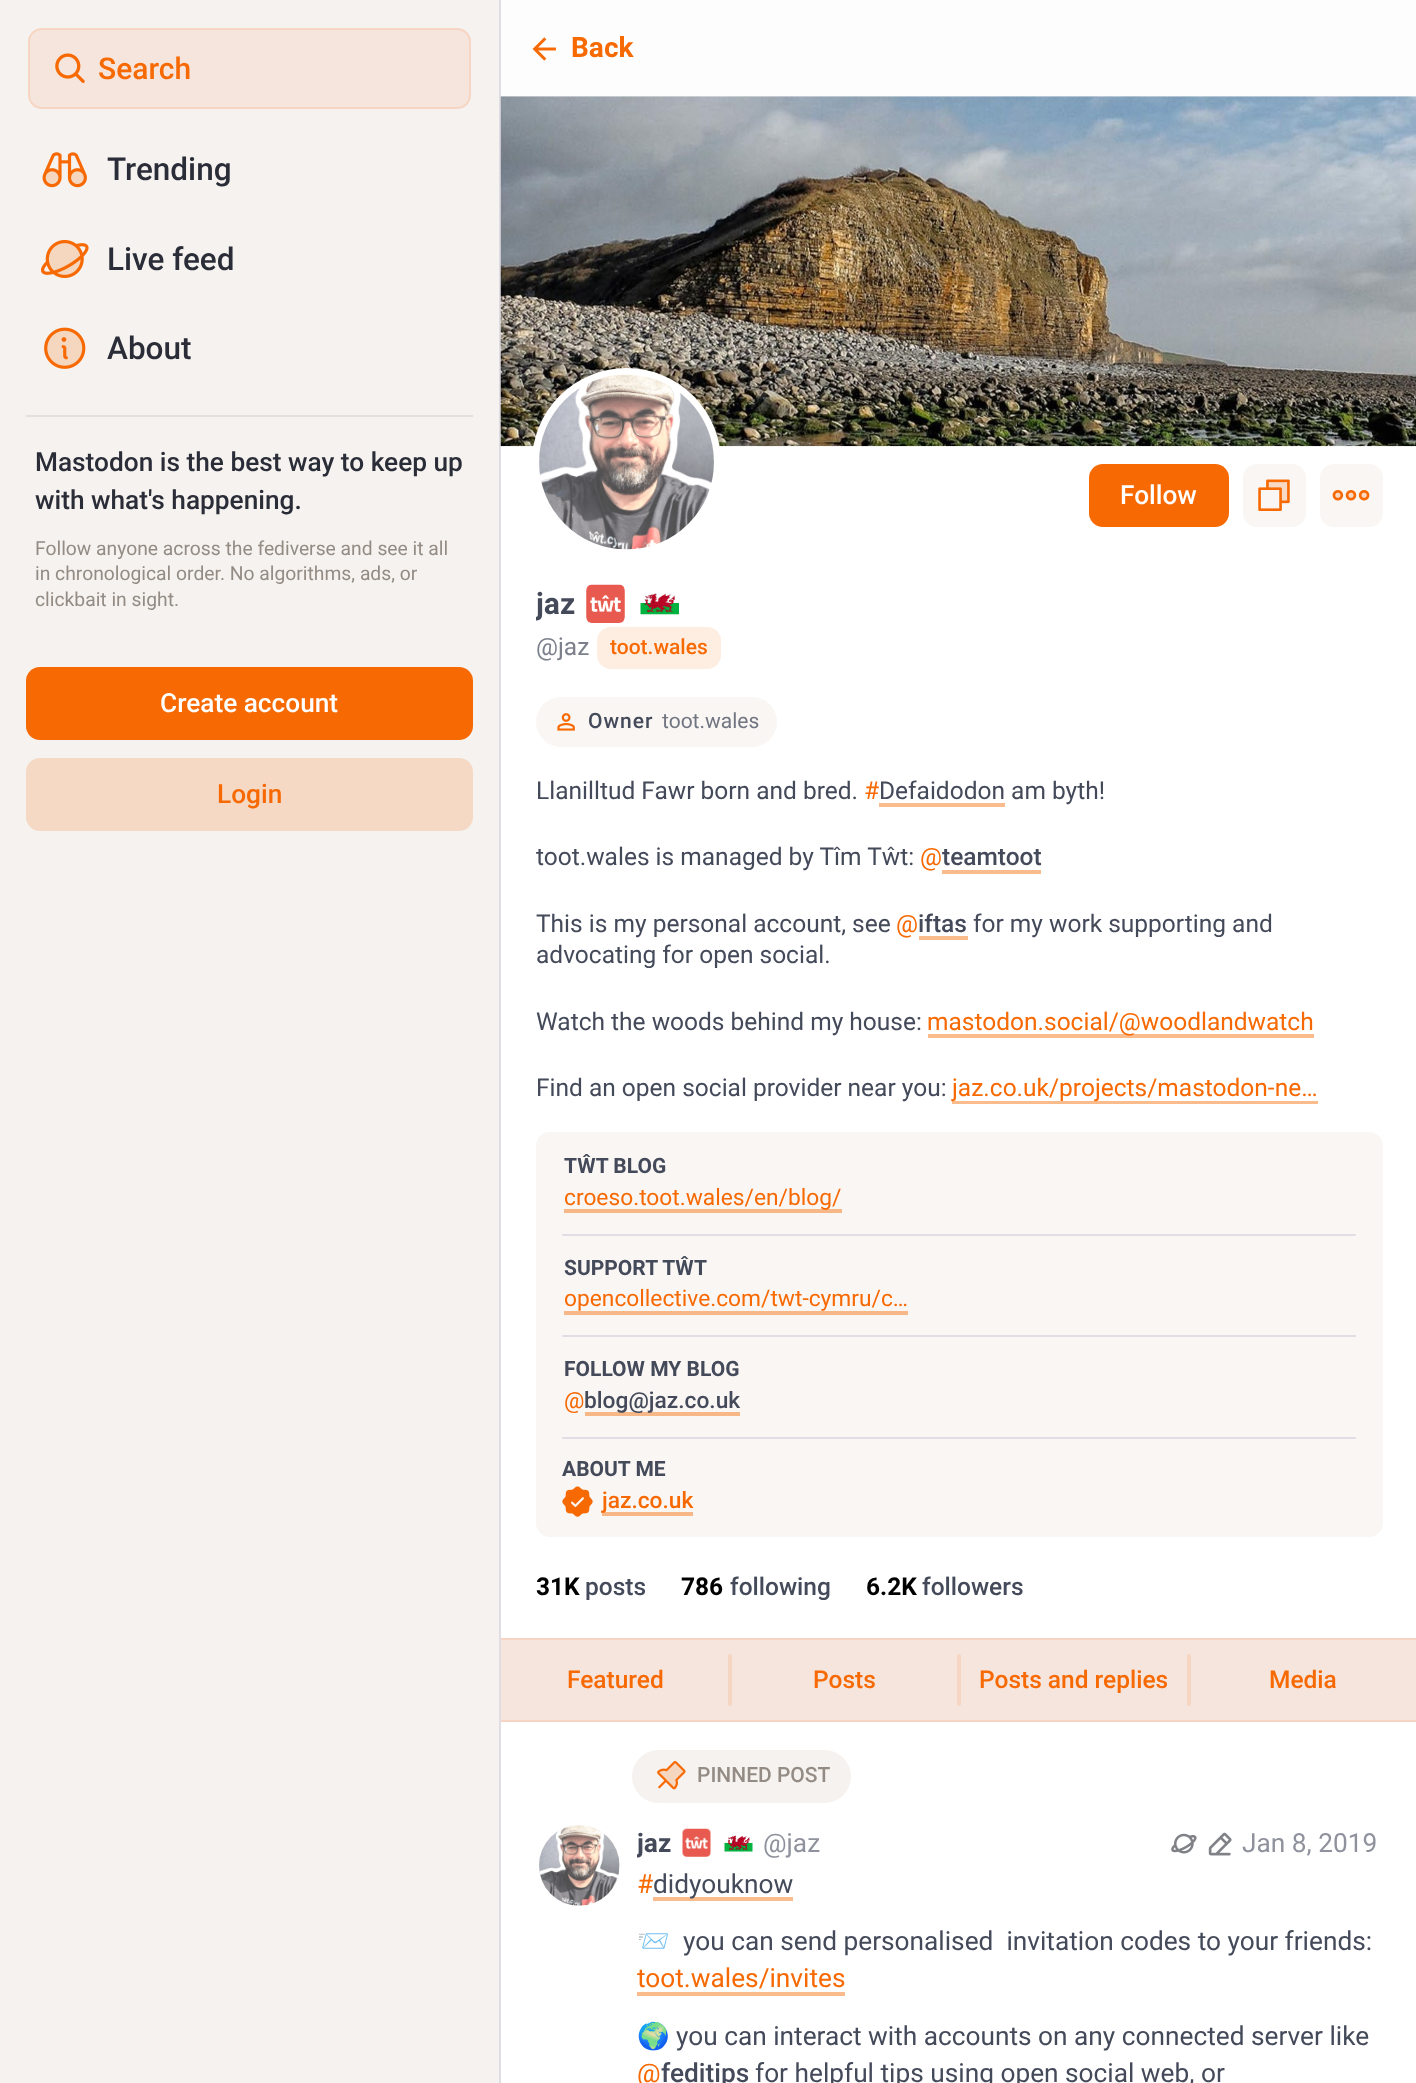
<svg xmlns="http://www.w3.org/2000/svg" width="1416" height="2083">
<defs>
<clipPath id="clip1"><rect x="536" y="585" width="847" height="84"/></clipPath>
<clipPath id="clip2"><rect x="637" y="1825" width="182" height="39"/></clipPath>
</defs>
<rect width="100%" height="100%" fill="#f5f2ef"/>
<rect x="28" y="28" width="443" height="81" rx="14" fill="#f6e5dd"/>
<rect x="29" y="29" width="441" height="79" rx="13" fill="none" stroke="#f769021f" stroke-width="2"/>
<image x="55" y="53" width="30" height="30" href="media/1.png"/>
<text x="98" y="79" style="font-family:Roboto;font-size:30px;font-weight:500;fill:#f76902">Search</text>
<image x="42" y="152" width="45" height="36" href="media/2.png"/>
<text x="107" y="180" style="font-family:Roboto;font-size:31.5px;font-weight:500;fill:#2a2d37">Trending</text>
<image x="41" y="240" width="48" height="38" href="media/3.png"/>
<text x="107" y="270" style="font-family:Roboto;font-size:31.5px;font-weight:500;fill:#2a2d37">Live feed</text>
<image x="44" y="327" width="42" height="42" href="media/4.png"/>
<text x="107" y="359" style="font-family:Roboto;font-size:31.5px;font-weight:500;fill:#2a2d37">About</text>
<rect x="26" y="415" width="447" height="2" fill="#e3e0dd"/>
<text x="35" y="471" style="font-family:Roboto;font-size:26.25px;font-weight:500;fill:#2a2d37">Mastodon is the best way to keep up</text>
<text x="35" y="509" style="font-family:Roboto;font-size:26.25px;font-weight:500;fill:#2a2d37">with what's happening.</text>
<text x="35" y="555" style="font-family:Roboto;font-size:19.3px;fill:#948c84">Follow anyone across the fediverse and see it all</text>
<text x="35" y="580" style="font-family:Roboto;font-size:19.3px;fill:#948c84">in chronological order. No algorithms, ads, or</text>
<text x="35" y="606" style="font-family:Roboto;font-size:19.3px;fill:#948c84">clickbait in sight.</text>
<rect x="26" y="667" width="447" height="73" rx="14" fill="#f76902"/>
<text x="160" y="712" style="font-family:Roboto;font-size:26.25px;font-weight:500;fill:#fff">Create account</text>
<rect x="26" y="758" width="447" height="73" rx="14" fill="#f5d9c4"/>
<text x="217" y="803" style="font-family:Roboto;font-size:26.25px;font-weight:500;fill:#f76902">Login</text>
<rect x="501" width="915" height="96" fill="#fdfdfd"/>
<image x="532" y="37" width="24" height="24" href="media/5.png"/>
<text x="571" y="57" style="font-family:Roboto;font-size:28px;font-weight:bold;fill:#f76902">Back</text>
<rect x="501" y="446" width="915" height="1637" fill="#fff"/>
<rect x="499" width="2" height="2083" fill="#e1dde4"/>
<rect x="501" y="96" width="915" height="1" fill="#f9f6f4"/>
<image x="500" y="96" width="916" height="351" href="media/6.png"/>
<circle cx="626.5" cy="462.5" r="91" fill="#fff" stroke="#fff" stroke-width="7"/>
<image x="539" y="374" width="175" height="176" href="media/7.png"/>
<rect x="1089" y="464" width="140" height="63" rx="14" fill="#f76902"/>
<text x="1120" y="504" style="font-family:Roboto;font-size:26.25px;font-weight:500;fill:#fff">Follow</text>
<rect x="1243" y="464" width="63" height="63" rx="14" fill="#f9f6f4"/>
<image x="1258" y="479" width="32" height="32" href="media/8.png"/>
<rect x="1320" y="464" width="63" height="63" rx="14" fill="#f9f6f4"/>
<image x="1332" y="490" width="38" height="11" href="media/9.png"/>
<g clip-path="url(#clip1)">
<text x="536" y="614" style="font-family:Roboto;font-size:30px;font-weight:bold;fill:#444a5a">jaz</text>
</g>
<image x="586" y="584" width="39" height="39" href="media/10.png"/>
<image x="640" y="593" width="39" height="22" href="media/11.png"/>
<text x="536" y="655" style="font-family:Roboto;font-size:24.5px;fill:#7c808c">@jaz</text>
<rect x="597" y="627" width="124" height="42" rx="14" fill="#feede1"/>
<text x="610" y="654" style="font-family:Roboto;font-size:21px;font-weight:500;fill:#f76902">toot.wales</text>
<rect x="536" y="697" width="241" height="50" rx="25" fill="#f9f6f4"/>
<image x="557" y="713" width="18" height="18" href="media/12.png"/>
<text x="588" y="728" style="font-family:Roboto;font-size:21px;font-weight:500;letter-spacing:1px;fill:#444a5a">Owner</text>
<text x="662" y="728" style="font-family:Roboto;font-size:21px;fill:#717581">toot.wales</text>
<text x="536" y="799" style="font-family:Roboto;font-size:24.5px;fill:#444a5a">Llanilltud Fawr born and bred.</text>
<text x="864" y="799" style="font-family:Roboto;font-size:24.5px;fill:#f76902">#</text>
<rect x="879" y="803" width="126" height="4" fill="#fbbc8d"/>
<text x="879" y="799" style="font-family:Roboto;font-size:24.5px;fill:#444a5a">Defaidodon am byth!</text>
<text x="536" y="865" style="font-family:Roboto;font-size:24.5px;fill:#444a5a">toot.wales is managed by Tîm Tŵt:</text>
<text x="920" y="865" style="font-family:Roboto;font-size:24.5px;fill:#f76902">@</text>
<rect x="942" y="870" width="99" height="4" fill="#fbbc8d"/>
<text x="942" y="865" style="font-family:Roboto;font-size:24.5px;font-weight:500;fill:#444a5a">teamtoot</text>
<text x="536" y="932" style="font-family:Roboto;font-size:24.5px;fill:#444a5a">This is my personal account, see</text>
<text x="896" y="932" style="font-family:Roboto;font-size:24.5px;fill:#f76902">@</text>
<rect x="919" y="936" width="49" height="4" fill="#fbbc8d"/>
<text x="918" y="932" style="font-family:Roboto;font-size:24.5px;font-weight:500;fill:#444a5a">iftas</text>
<text x="973" y="932" style="font-family:Roboto;font-size:24.5px;fill:#444a5a">for my work supporting and</text>
<text x="536" y="963" style="font-family:Roboto;font-size:24.5px;fill:#444a5a">advocating for open social.</text>
<text x="536" y="1030" style="font-family:Roboto;font-size:24.5px;fill:#444a5a">Watch the woods behind my house:</text>
<rect x="928" y="1034" width="386" height="4" fill="#fbbc8d"/>
<text x="927" y="1030" style="font-family:Roboto;font-size:24.5px;fill:#f76902">mastodon.social/@woodlandwatch</text>
<text x="536" y="1096" style="font-family:Roboto;font-size:24.5px;fill:#444a5a">Find an open social provider near you:</text>
<rect x="952" y="1101" width="366" height="3" fill="#fbbc8d"/>
<text x="952" y="1096" style="font-family:Roboto;font-size:24.5px;fill:#f76902">jaz.co.uk/projects/mastodon-ne…</text>
<rect x="536" y="1132" width="847" height="405" rx="14" fill="#f9f6f4"/>
<text x="564" y="1173" style="font-family:Roboto;font-size:21px;font-weight:bold;fill:#444a5a">TŴT BLOG</text>
<rect x="564" y="1209" width="278" height="4" fill="#f8b787"/>
<text x="564" y="1205" style="font-family:Roboto;font-size:22.75px;fill:#f76902">croeso.toot.wales/en/blog/</text>
<rect x="562" y="1234" width="794" height="2" rx="1" fill="#e1dde4"/>
<text x="564" y="1275" style="font-family:Roboto;font-size:21px;font-weight:bold;fill:#444a5a">SUPPORT TŴT</text>
<text x="564" y="1306" style="font-family:Roboto;font-size:22.75px;fill:#f76902">opencollective.com/twt-cymru/c…</text>
<rect x="564" y="1311" width="344" height="4" fill="#f8b787"/>
<rect x="562" y="1335" width="794" height="2" rx="1" fill="#e1dde4"/>
<text x="564" y="1376" style="font-family:Roboto;font-size:21px;font-weight:bold;fill:#444a5a">FOLLOW MY BLOG</text>
<text x="564" y="1408" style="font-family:Roboto;font-size:22.75px;fill:#f76902">@</text>
<rect x="585" y="1412" width="155" height="4" fill="#f8b787"/>
<text x="584" y="1408" style="font-family:Roboto;font-size:22.75px;font-weight:500;fill:#444a5a">blog@jaz.co.uk</text>
<rect x="562" y="1437" width="794" height="2" rx="1" fill="#e1dde4"/>
<text x="562" y="1476" style="font-family:Roboto;font-size:21px;font-weight:bold;fill:#444a5a">ABOUT ME</text>
<image x="562" y="1486" width="31" height="31" href="media/13.png"/>
<rect x="602" y="1512" width="91" height="4" fill="#f8b787"/>
<text x="602" y="1508" style="font-family:Roboto;font-size:22.75px;font-weight:500;fill:#f76902">jaz.co.uk</text>
<text x="536" y="1595" style="font-family:Roboto;font-size:24.5px;font-weight:bold;fill:#000">31K</text>
<text x="585" y="1595" style="font-family:Roboto;font-size:24.5px;font-weight:500;fill:#444a5a">posts</text>
<text x="681" y="1595" style="font-family:Roboto;font-size:24.5px;font-weight:bold;fill:#000">786</text>
<text x="730" y="1595" style="font-family:Roboto;font-size:24.5px;font-weight:500;fill:#444a5a">following</text>
<text x="866" y="1595" style="font-family:Roboto;font-size:24.5px;font-weight:bold;fill:#000">6.2K</text>
<text x="922" y="1595" style="font-family:Roboto;font-size:24.5px;font-weight:500;fill:#444a5a">followers</text>
<rect x="501" y="1640" width="915" height="80" fill="#f6e5dd"/>
<rect x="501" y="1638" width="915" height="2" fill="#f6d6c3"/>
<rect x="501" y="1720" width="915" height="2" fill="#f6d6c3"/>
<text x="567" y="1688" style="font-family:Roboto;font-size:24.5px;font-weight:500;fill:#f76902">Featured</text>
<rect x="728" y="1654" width="4" height="52" rx="2" fill="#f6d6c3"/>
<text x="813" y="1688" style="font-family:Roboto;font-size:24.5px;font-weight:500;fill:#f76902">Posts</text>
<rect x="957" y="1654" width="4" height="52" rx="2" fill="#f6d6c3"/>
<text x="979" y="1688" style="font-family:Roboto;font-size:24.5px;font-weight:500;fill:#f76902">Posts and replies</text>
<rect x="1187" y="1654" width="4" height="52" rx="2" fill="#f6d6c3"/>
<text x="1269" y="1688" style="font-family:Roboto;font-size:24.5px;font-weight:500;fill:#f76902">Media</text>
<rect x="632" y="1750" width="219" height="53" rx="26.5" fill="#f5f2ef"/>
<image x="657" y="1761" width="29" height="29" href="media/14.png"/>
<text x="697" y="1782" style="font-family:Roboto;font-size:21px;font-weight:500;fill:#948c84">PINNED POST</text>
<circle cx="579.5" cy="1865.5" r="40.5" fill="#f9f6f4"/>
<image x="539" y="1825" width="81" height="81" href="media/15.png"/>
<g clip-path="url(#clip2)">
<text x="637" y="1852" style="font-family:Roboto;font-size:26.25px;font-weight:bold;fill:#444a5a">jaz</text>
</g>
<image x="682" y="1828" width="29" height="29" href="media/16.png"/>
<image x="724" y="1835" width="29" height="17" href="media/17.png"/>
<text x="763" y="1852" style="font-family:Roboto;font-size:26.25px;fill:#8f929c">@jaz</text>
<image x="1171" y="1833" width="26" height="21" href="media/18.png"/>
<image x="1208" y="1832" width="24" height="24" href="media/19.png"/>
<text x="1242" y="1852" style="font-family:Roboto;font-size:26.25px;fill:#8f929c">Jan 8, 2019</text>
<text x="637" y="1893" style="font-family:Roboto;font-size:26.25px;fill:#f76902">#</text>
<rect x="653" y="1897" width="140" height="4" fill="#fbbc8d"/>
<text x="653" y="1893" style="font-family:Roboto;font-size:26.25px;fill:#444a5a">didyouknow</text>
<text x="637" y="1950" style="font-family:Noto Color Emoji;font-size:26.25px;fill:#444a5a">📨</text>
<text x="683" y="1950" style="font-family:Roboto;font-size:26.25px;fill:#444a5a" xml:space="preserve">you can send personalised  invitation codes to your friends:</text>
<text x="637" y="1987" style="font-family:Roboto;font-size:26.25px;fill:#f76902">toot.wales/invites</text>
<rect x="637" y="1992" width="208" height="4" fill="#fbbc8d"/>
<text x="637" y="2045" style="font-family:Noto Color Emoji;font-size:26.25px;fill:#444a5a">🌍</text>
<text x="676" y="2045" style="font-family:Roboto;font-size:26.25px;fill:#444a5a">you can interact with accounts on any connected server like</text>
<text x="637" y="2082" style="font-family:Roboto;font-size:26.25px;fill:#f76902">@</text>
<text x="661" y="2082" style="font-family:Roboto;font-size:26.25px;font-weight:500;fill:#444a5a">feditips</text>
<text x="755" y="2082" style="font-family:Roboto;font-size:26.25px;fill:#444a5a">for helpful tips using open social web, or</text>
</svg>
